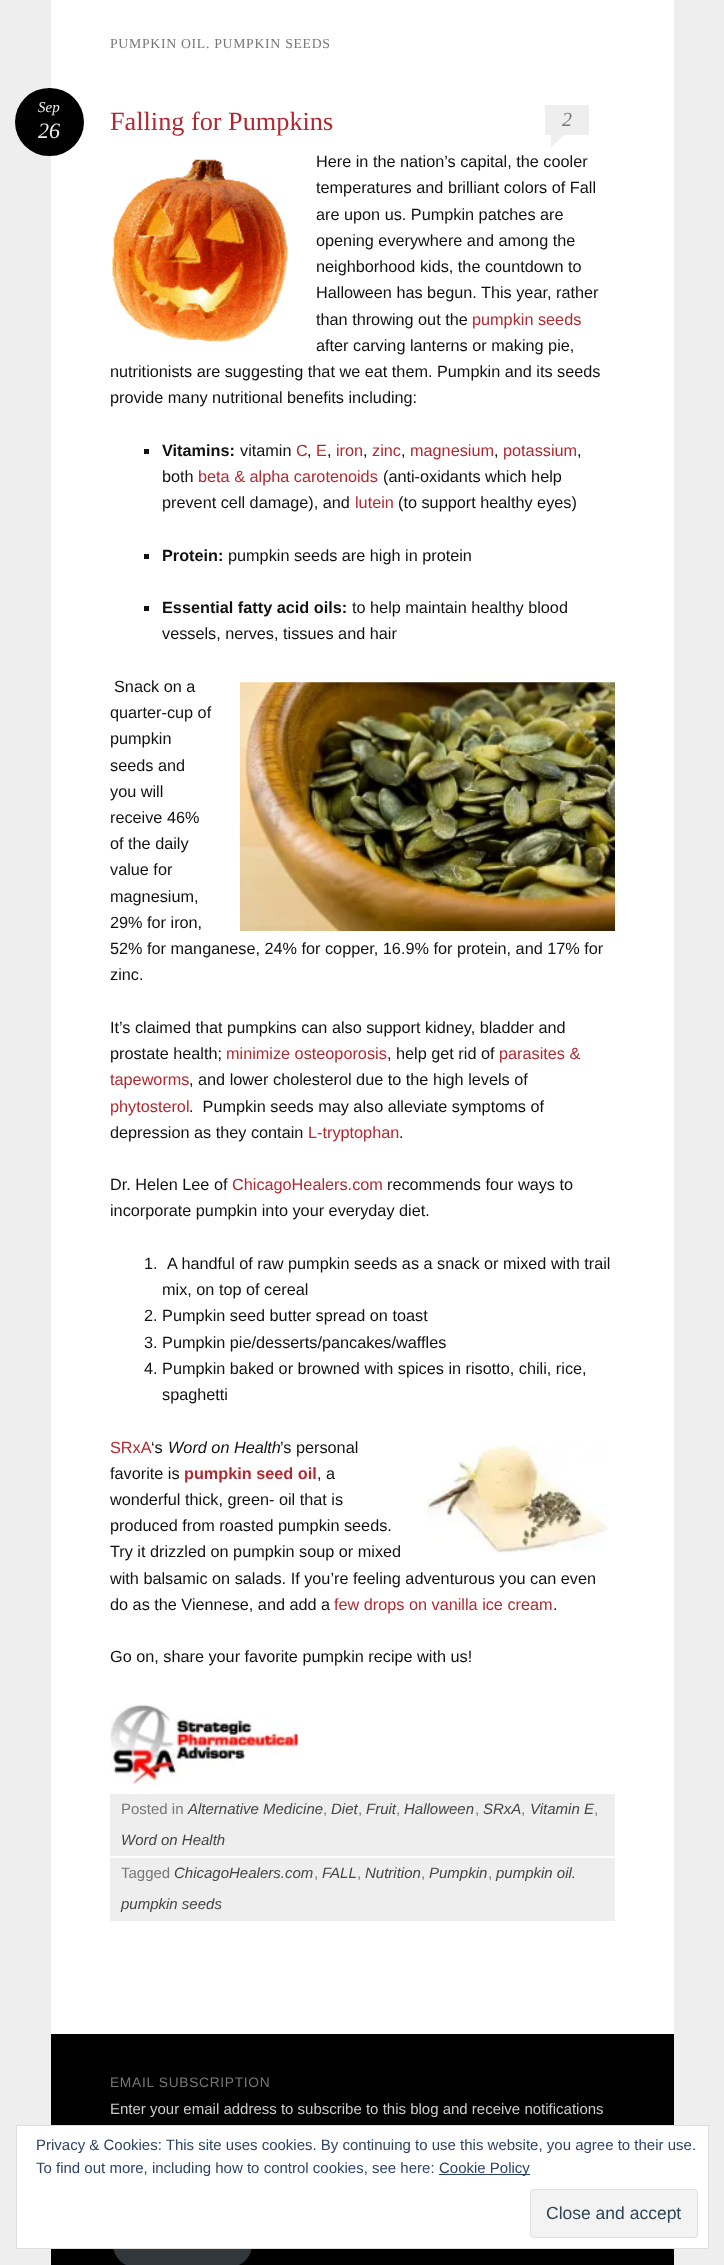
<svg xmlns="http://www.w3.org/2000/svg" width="724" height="2265">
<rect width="100%" height="100%" fill="#eee"/>
<rect x="51" width="623" height="2034" fill="#fff"/>
<text x="110" y="48" style="font-family:Liberation Serif;font-size:13.75px;letter-spacing:0.7px;fill:#777">PUMPKIN OIL. PUMPKIN SEEDS</text>
<rect x="15" y="88" width="69" height="68" rx="34" fill="#000"/>
<text x="38" y="112" style="font-family:Liberation Serif;font-size:15px;font-style:italic;fill:#eee">Sep</text>
<text x="38" y="138" style="font-family:Liberation Serif;font-size:22px;font-style:italic;fill:#eee">26</text>
<rect x="110" y="1794" width="505" height="62" fill="#eee"/>
<text x="121" y="1814" style="font-family:Liberation Sans;font-size:15px;fill:#777">Posted in</text>
<text x="188" y="1814" style="font-family:Liberation Sans;font-size:15px;font-style:italic;fill:#444">Alternative Medicine</text>
<text x="323" y="1814" style="font-family:Liberation Sans;font-size:15px;fill:#777">,</text>
<text x="331" y="1814" style="font-family:Liberation Sans;font-size:15px;font-style:italic;fill:#444">Diet</text>
<text x="358" y="1814" style="font-family:Liberation Sans;font-size:15px;fill:#777">,</text>
<text x="366" y="1814" style="font-family:Liberation Sans;font-size:15px;font-style:italic;fill:#444">Fruit</text>
<text x="396" y="1814" style="font-family:Liberation Sans;font-size:15px;fill:#777">,</text>
<text x="404" y="1814" style="font-family:Liberation Sans;font-size:15px;font-style:italic;fill:#444">Halloween</text>
<text x="475" y="1814" style="font-family:Liberation Sans;font-size:15px;fill:#777">,</text>
<text x="483" y="1814" style="font-family:Liberation Sans;font-size:15px;font-style:italic;fill:#444">SRxA</text>
<text x="521" y="1814" style="font-family:Liberation Sans;font-size:15px;fill:#777">,</text>
<text x="530" y="1814" style="font-family:Liberation Sans;font-size:15px;font-style:italic;fill:#444">Vitamin E</text>
<text x="594" y="1814" style="font-family:Liberation Sans;font-size:15px;fill:#777">,</text>
<text x="121" y="1845" style="font-family:Liberation Sans;font-size:15px;font-style:italic;fill:#444">Word on Health</text>
<rect x="110" y="1858" width="505" height="63" fill="#eee"/>
<text x="121" y="1878" style="font-family:Liberation Sans;font-size:15px;fill:#777">Tagged</text>
<text x="174" y="1878" style="font-family:Liberation Sans;font-size:15px;font-style:italic;fill:#444">ChicagoHealers.com</text>
<text x="314" y="1878" style="font-family:Liberation Sans;font-size:15px;fill:#777">,</text>
<text x="322" y="1878" style="font-family:Liberation Sans;font-size:15px;font-style:italic;fill:#444">FALL</text>
<text x="357" y="1878" style="font-family:Liberation Sans;font-size:15px;fill:#777">,</text>
<text x="365" y="1878" style="font-family:Liberation Sans;font-size:15px;font-style:italic;fill:#444">Nutrition</text>
<text x="421" y="1878" style="font-family:Liberation Sans;font-size:15px;fill:#777">,</text>
<text x="429" y="1878" style="font-family:Liberation Sans;font-size:15px;font-style:italic;fill:#444">Pumpkin</text>
<text x="488" y="1878" style="font-family:Liberation Sans;font-size:15px;fill:#777">,</text>
<text x="496" y="1878" style="font-family:Liberation Sans;font-size:15px;font-style:italic;fill:#444">pumpkin oil.</text>
<text x="121" y="1909" style="font-family:Liberation Sans;font-size:15px;font-style:italic;fill:#444">pumpkin seeds</text>
<text x="110" y="130" style="font-family:Liberation Serif;font-size:26.25px;fill:#b12930">Falling for Pumpkins</text>
<rect x="545" y="105" width="44" height="30" fill="#eee"/>
<text x="562" y="126" style="font-family:Liberation Serif;font-size:20px;font-style:italic;fill:#777">2</text>
<path d="M551 147.5v-12.5h13z" fill="#eee"/>
<image x="112" y="158" width="176" height="185" href="media/1.png"/>
<text x="316" y="167" style="font-family:Liberation Sans;font-size:16.25px;fill:#111">Here in the nation’s capital, the cooler</text>
<text x="316" y="193" style="font-family:Liberation Sans;font-size:16.25px;fill:#111">temperatures and brilliant colors of Fall</text>
<text x="316" y="220" style="font-family:Liberation Sans;font-size:16.25px;fill:#111">are upon us. Pumpkin patches are</text>
<text x="316" y="246" style="font-family:Liberation Sans;font-size:16.25px;fill:#111">opening everywhere and among the</text>
<text x="316" y="272" style="font-family:Liberation Sans;font-size:16.25px;fill:#111">neighborhood kids, the countdown to</text>
<text x="316" y="298" style="font-family:Liberation Sans;font-size:16.25px;fill:#111">Halloween has begun. This year, rather</text>
<text x="316" y="325" style="font-family:Liberation Sans;font-size:16.25px;fill:#111">than throwing out the</text>
<text x="472" y="325" style="font-family:Liberation Sans;font-size:16.25px;fill:#b12930">pumpkin seeds</text>
<text x="316" y="351" style="font-family:Liberation Sans;font-size:16.25px;fill:#111">after carving lanterns or making pie,</text>
<text x="110" y="377" style="font-family:Liberation Sans;font-size:16.25px;fill:#111">nutritionists are suggesting that we eat them. Pumpkin and its seeds</text>
<text x="110" y="403" style="font-family:Liberation Sans;font-size:16.25px;fill:#111">provide many nutritional benefits including:</text>
<rect x="144" y="449" width="5" height="5" fill="#111"/>
<text x="162" y="456" style="font-family:Liberation Sans;font-size:16.25px;font-weight:bold;fill:#111">Vitamins:</text>
<text x="240" y="456" style="font-family:Liberation Sans;font-size:16.25px;fill:#111">vitamin</text>
<text x="296" y="456" style="font-family:Liberation Sans;font-size:16.25px;fill:#b12930">C</text>
<text x="316" y="456" style="font-family:Liberation Sans;font-size:16.25px;fill:#b12930">E</text>
<text x="336" y="456" style="font-family:Liberation Sans;font-size:16.25px;fill:#b12930">iron</text>
<text x="372" y="456" style="font-family:Liberation Sans;font-size:16.25px;fill:#b12930">zinc</text>
<text x="410" y="456" style="font-family:Liberation Sans;font-size:16.25px;fill:#b12930">magnesium</text>
<text x="503" y="456" style="font-family:Liberation Sans;font-size:16.25px;fill:#b12930">potassium</text>
<text x="307" y="456" style="font-family:Liberation Sans;font-size:16.25px;fill:#111">,</text>
<text x="327" y="456" style="font-family:Liberation Sans;font-size:16.25px;fill:#111">,</text>
<text x="363" y="456" style="font-family:Liberation Sans;font-size:16.25px;fill:#111">,</text>
<text x="401" y="456" style="font-family:Liberation Sans;font-size:16.25px;fill:#111">,</text>
<text x="494" y="456" style="font-family:Liberation Sans;font-size:16.25px;fill:#111">,</text>
<text x="577" y="456" style="font-family:Liberation Sans;font-size:16.25px;fill:#111">,</text>
<text x="162" y="482" style="font-family:Liberation Sans;font-size:16.25px;fill:#111">both</text>
<text x="198" y="482" style="font-family:Liberation Sans;font-size:16.25px;fill:#b12930">beta &amp; alpha carotenoids</text>
<text x="383" y="482" style="font-family:Liberation Sans;font-size:16.25px;fill:#111">(anti-oxidants which help</text>
<text x="162" y="508" style="font-family:Liberation Sans;font-size:16.25px;fill:#111">prevent cell damage), and</text>
<text x="355" y="508" style="font-family:Liberation Sans;font-size:16.25px;fill:#b12930">lutein</text>
<text x="398" y="508" style="font-family:Liberation Sans;font-size:16.25px;fill:#111">(to support healthy eyes)</text>
<rect x="144" y="554" width="5" height="5" fill="#111"/>
<text x="162" y="561" style="font-family:Liberation Sans;font-size:16.25px;font-weight:bold;fill:#111">Protein:</text>
<text x="228" y="561" style="font-family:Liberation Sans;font-size:16.25px;fill:#111">pumpkin seeds are high in protein</text>
<rect x="144" y="606" width="5" height="5" fill="#111"/>
<text x="162" y="613" style="font-family:Liberation Sans;font-size:16.25px;font-weight:bold;fill:#111">Essential fatty acid oils:</text>
<text x="352" y="613" style="font-family:Liberation Sans;font-size:16.25px;fill:#111">to help maintain healthy blood</text>
<text x="162" y="639" style="font-family:Liberation Sans;font-size:16.25px;fill:#111">vessels, nerves, tissues and hair</text>
<text x="114" y="692" style="font-family:Liberation Sans;font-size:16.25px;fill:#111">Snack on a</text>
<image x="240" y="682" width="375" height="249" href="media/2.png"/>
<text x="110" y="718" style="font-family:Liberation Sans;font-size:16.25px;fill:#111">quarter-cup of</text>
<text x="110" y="744" style="font-family:Liberation Sans;font-size:16.25px;fill:#111">pumpkin</text>
<text x="110" y="771" style="font-family:Liberation Sans;font-size:16.25px;fill:#111">seeds and</text>
<text x="110" y="797" style="font-family:Liberation Sans;font-size:16.25px;fill:#111">you will</text>
<text x="110" y="823" style="font-family:Liberation Sans;font-size:16.25px;fill:#111">receive 46%</text>
<text x="110" y="849" style="font-family:Liberation Sans;font-size:16.25px;fill:#111">of the daily</text>
<text x="110" y="875" style="font-family:Liberation Sans;font-size:16.25px;fill:#111">value for</text>
<text x="110" y="902" style="font-family:Liberation Sans;font-size:16.25px;fill:#111">magnesium,</text>
<text x="110" y="928" style="font-family:Liberation Sans;font-size:16.25px;fill:#111">29% for iron,</text>
<text x="110" y="954" style="font-family:Liberation Sans;font-size:16.25px;fill:#111">52% for manganese, 24% for copper, 16.9% for protein, and 17% for</text>
<text x="110" y="980" style="font-family:Liberation Sans;font-size:16.25px;fill:#111">zinc.</text>
<text x="110" y="1033" style="font-family:Liberation Sans;font-size:16.25px;fill:#111">It’s claimed that pumpkins can also support kidney, bladder and</text>
<text x="110" y="1059" style="font-family:Liberation Sans;font-size:16.25px;fill:#111">prostate health;</text>
<text x="226" y="1059" style="font-family:Liberation Sans;font-size:16.25px;fill:#b12930">minimize osteoporosis</text>
<text x="387" y="1059" style="font-family:Liberation Sans;font-size:16.25px;fill:#111">, help get rid of</text>
<text x="499" y="1059" style="font-family:Liberation Sans;font-size:16.25px;fill:#b12930">parasites &amp;</text>
<text x="110" y="1085" style="font-family:Liberation Sans;font-size:16.25px;fill:#b12930">tapeworms</text>
<text x="189" y="1085" style="font-family:Liberation Sans;font-size:16.25px;fill:#111">, and lower cholesterol due to the high levels of</text>
<text x="110" y="1112" style="font-family:Liberation Sans;font-size:16.25px;fill:#b12930">phytosterol</text>
<text x="189" y="1112" style="font-family:Liberation Sans;font-size:16.25px;fill:#111" xml:space="preserve">.  Pumpkin seeds may also alleviate symptoms of</text>
<text x="110" y="1138" style="font-family:Liberation Sans;font-size:16.25px;fill:#111">depression as they contain</text>
<text x="308" y="1138" style="font-family:Liberation Sans;font-size:16.25px;fill:#b12930">L-tryptophan</text>
<text x="399" y="1138" style="font-family:Liberation Sans;font-size:16.25px;fill:#111">.</text>
<text x="110" y="1190" style="font-family:Liberation Sans;font-size:16.25px;fill:#111">Dr. Helen Lee of</text>
<text x="232" y="1190" style="font-family:Liberation Sans;font-size:16.25px;fill:#b12930">ChicagoHealers.com</text>
<text x="387" y="1190" style="font-family:Liberation Sans;font-size:16.25px;fill:#111">recommends four ways to</text>
<text x="110" y="1216" style="font-family:Liberation Sans;font-size:16.25px;fill:#111">incorporate pumpkin into your everyday diet.</text>
<text x="144" y="1269" style="font-family:Liberation Sans;font-size:16.25px;fill:#111">1.</text>
<text x="167" y="1269" style="font-family:Liberation Sans;font-size:16.25px;fill:#111">A handful of raw pumpkin seeds as a snack or mixed with trail</text>
<text x="162" y="1295" style="font-family:Liberation Sans;font-size:16.25px;fill:#111">mix, on top of cereal</text>
<text x="144" y="1321" style="font-family:Liberation Sans;font-size:16.25px;fill:#111">2. Pumpkin seed butter spread on toast</text>
<text x="144" y="1348" style="font-family:Liberation Sans;font-size:16.25px;fill:#111">3. Pumpkin pie/desserts/pancakes/waffles</text>
<text x="144" y="1374" style="font-family:Liberation Sans;font-size:16.25px;fill:#111">4. Pumpkin baked or browned with spices in risotto, chili, rice,</text>
<text x="162" y="1400" style="font-family:Liberation Sans;font-size:16.25px;fill:#111">spaghetti</text>
<text x="110" y="1453" style="font-family:Liberation Sans;font-size:16.25px;fill:#b12930">SRxA</text>
<text x="151" y="1453" style="font-family:Liberation Sans;font-size:16.25px;fill:#111">‘s</text>
<text x="168" y="1453" style="font-family:Liberation Sans;font-size:16.25px;font-style:italic;fill:#111">Word on Health</text>
<text x="280" y="1453" style="font-family:Liberation Sans;font-size:16.25px;fill:#111">’s personal</text>
<image x="427" y="1444" width="181" height="109" href="media/3.png"/>
<text x="110" y="1479" style="font-family:Liberation Sans;font-size:16.25px;fill:#111">favorite is</text>
<text x="184" y="1479" style="font-family:Liberation Sans;font-size:16.25px;font-weight:bold;fill:#b12930">pumpkin seed oil</text>
<text x="317" y="1479" style="font-family:Liberation Sans;font-size:16.25px;fill:#111">, a</text>
<text x="110" y="1505" style="font-family:Liberation Sans;font-size:16.25px;fill:#111">wonderful thick, green- oil that is</text>
<text x="110" y="1531" style="font-family:Liberation Sans;font-size:16.25px;fill:#111">produced from roasted pumpkin seeds.</text>
<text x="110" y="1557" style="font-family:Liberation Sans;font-size:16.25px;fill:#111">Try it drizzled on pumpkin soup or mixed</text>
<text x="110" y="1584" style="font-family:Liberation Sans;font-size:16.25px;fill:#111">with balsamic on salads. If you’re feeling adventurous you can even</text>
<text x="110" y="1610" style="font-family:Liberation Sans;font-size:16.25px;fill:#111">do as the Viennese, and add a</text>
<text x="334" y="1610" style="font-family:Liberation Sans;font-size:16.25px;fill:#b12930">few drops on vanilla ice cream</text>
<text x="553" y="1610" style="font-family:Liberation Sans;font-size:16.25px;fill:#111">.</text>
<text x="110" y="1662" style="font-family:Liberation Sans;font-size:16.25px;fill:#111">Go on, share your favorite pumpkin recipe with us!</text>
<image x="110" y="1704" width="188" height="80" href="media/4.png"/>
<rect x="51" y="2034" width="623" height="231" fill="#000"/>
<text x="110" y="2087" style="font-family:Liberation Sans;font-size:13.75px;letter-spacing:0.7px;fill:#777">EMAIL SUBSCRIPTION</text>
<text x="110" y="2114" style="font-family:Liberation Sans;font-size:15px;fill:#ccc">Enter your email address to subscribe to this blog and receive notifications</text>
<rect x="111.5" y="2220.5" width="142" height="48" rx="24" fill="#32373c" stroke="#000" stroke-width="3"/>
<rect x="16.5" y="2125.5" width="692" height="123" fill="#fff" stroke="#dedede"/>
<text x="36" y="2150" style="font-family:Liberation Sans;font-size:15px;fill:#2e4467">Privacy &amp; Cookies: This site uses cookies. By continuing to use this website, you agree to their use.</text>
<text x="36" y="2173" style="font-family:Liberation Sans;font-size:15px;fill:#2e4467">To find out more, including how to control cookies, see here:</text>
<rect x="439" y="2174" width="91" height="1" fill="#2e4467"/>
<text x="439" y="2173" style="font-family:Liberation Sans;font-size:15px;fill:#2e4467">Cookie Policy</text>
<rect x="530.5" y="2189.5" width="167" height="48" rx="3.5" fill="#f3f3f3" stroke="#dedede"/>
<text x="546" y="2219" style="font-family:Liberation Sans;font-size:17.5px;fill:#2e4453">Close and accept</text>
</svg>
